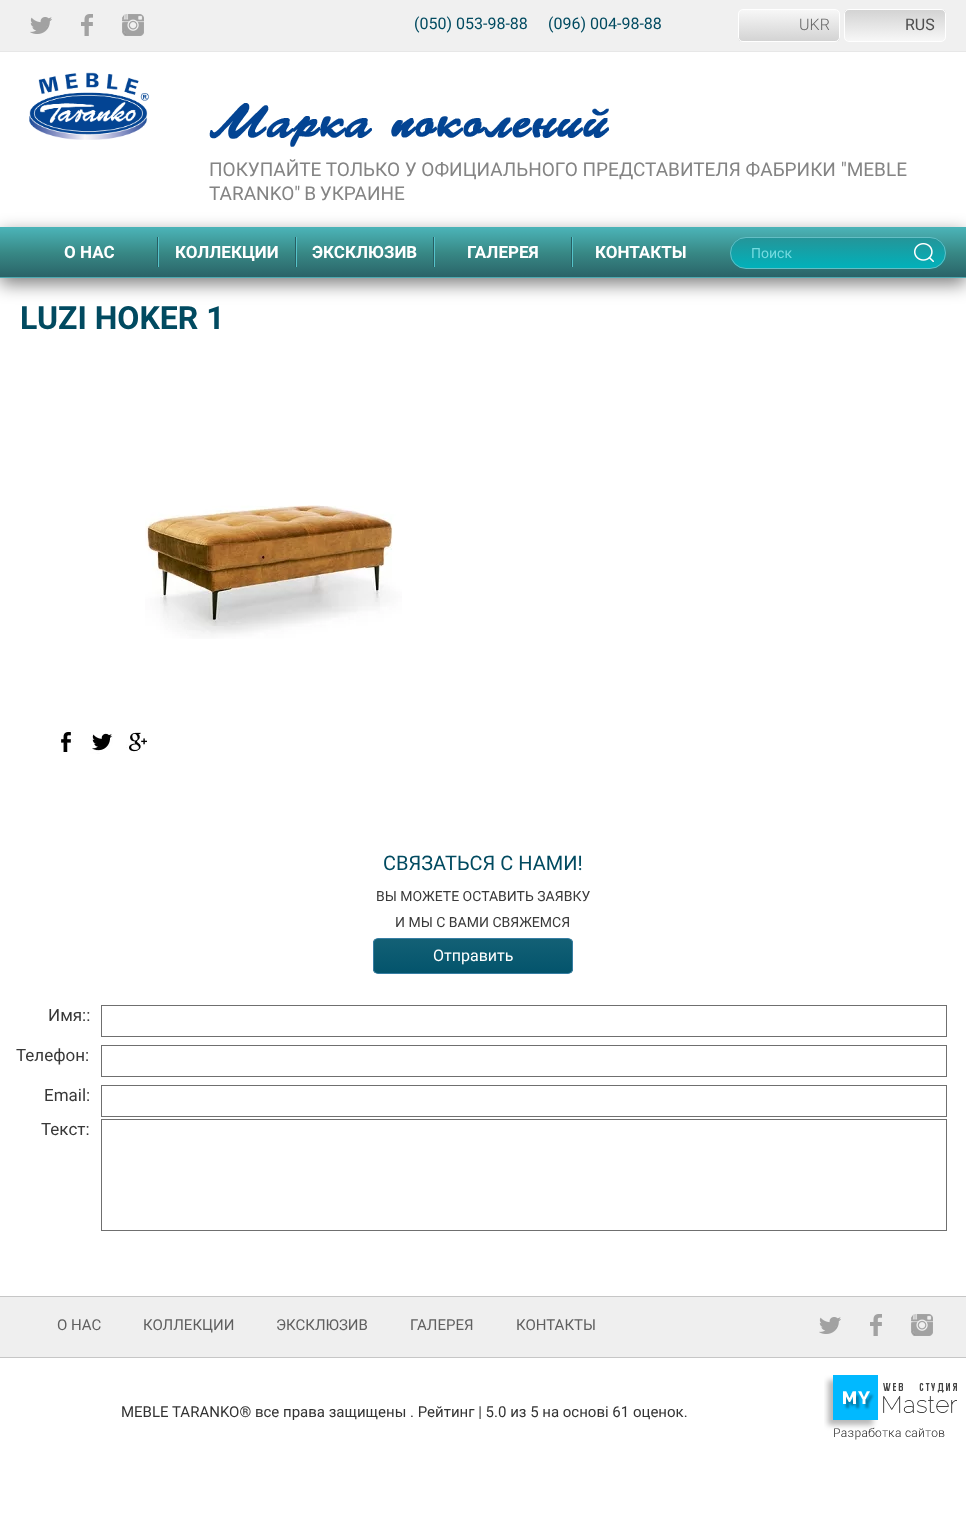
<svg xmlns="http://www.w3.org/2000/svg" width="966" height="1539">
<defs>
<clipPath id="clip1"><rect x="738" y="9" width="102" height="33" rx="5"/></clipPath>
<linearGradient id="g1" gradientUnits="userSpaceOnUse" x1="789" y1="10" x2="789" y2="41"><stop offset="0" stop-color="#f7f7f7"/><stop offset="1" stop-color="#d3d3d3"/></linearGradient>
<clipPath id="clip2"><rect x="844" y="9" width="102" height="33" rx="5"/></clipPath>
<linearGradient id="g2" gradientUnits="userSpaceOnUse" x1="895" y1="10" x2="895" y2="41"><stop offset="0" stop-color="#d3d3d3"/><stop offset="1" stop-color="#f7f7f7"/></linearGradient>
<linearGradient id="g3" gradientUnits="userSpaceOnUse" x1="483" y1="227" x2="483" y2="277"><stop offset="0.02" stop-color="#4bb3b7"/><stop offset="0.51" stop-color="#388986"/><stop offset="1" stop-color="#2a6368"/></linearGradient>
<clipPath id="clip3"><rect x="730" y="237" width="216" height="32" rx="16"/></clipPath>
<linearGradient id="g4" gradientUnits="userSpaceOnUse" x1="838" y1="238" x2="838" y2="268"><stop offset="0" stop-color="#249599"/><stop offset="1" stop-color="#01b1ba"/></linearGradient>
<clipPath id="clip4"><rect x="373" y="938" width="200" height="36" rx="5"/></clipPath>
<linearGradient id="g5" gradientUnits="userSpaceOnUse" x1="473" y1="939" x2="473" y2="973"><stop offset="0.01" stop-color="#136075"/><stop offset="1" stop-color="#03546c"/></linearGradient>
</defs>
<rect width="100%" height="100%" fill="#fff"/>
<rect width="966" height="51" fill="#f0f0f0"/>
<rect y="51" width="966" height="1" fill="#e7e7e7"/>
<image x="30" y="17" width="22" height="17" href="media/1.png"/>
<image x="81" y="14" width="12" height="22" href="media/2.png"/>
<image x="122" y="14" width="22" height="22" href="media/3.png"/>
<text x="414" y="29" style="font-family:Roboto;font-size:16px;fill:#014a60">(050) 053-98-88</text>
<text x="548" y="29" style="font-family:Roboto;font-size:16px;fill:#014a60">(096) 004-98-88</text>
<g clip-path="url(#clip1)">
<rect x="738" y="10" width="102" height="31" fill="url(#g1)"/>
</g>
<rect x="738.5" y="9.5" width="101" height="32" rx="4.5" fill="none" stroke="#fff"/>
<text x="799" y="30" style="font-family:Roboto;font-size:16px;font-weight:300;fill:#666">UKR</text>
<g clip-path="url(#clip2)">
<rect x="844" y="10" width="102" height="31" fill="url(#g2)"/>
</g>
<rect x="844.5" y="9.5" width="101" height="32" rx="4.5" fill="none" stroke="#fff"/>
<text x="905" y="30" style="font-family:Roboto;font-size:16px;fill:#4f4f4f">RUS</text>
<image x="29" y="72" width="121" height="68" href="media/4.png"/>
<image x="209" y="103" width="400" height="44" href="media/5.png"/>
<text x="209" y="176" style="font-family:Roboto;font-size:19px;fill:#848484">ПОКУПАЙТЕ ТОЛЬКО У ОФИЦИАЛЬНОГО ПРЕДСТАВИТЕЛЯ ФАБРИКИ "MEBLE</text>
<text x="209" y="200" word-spacing="-1" style="font-family:Roboto;font-size:19px;fill:#848484">TARANKO" В УКРАИНЕ</text>
<rect y="233" width="966" height="51" fill="#00000080" filter="blur(9px)"/>
<rect y="227" width="966" height="50" fill="url(#g3)"/>
<rect y="277" width="966" height="1" fill="#4eaab1"/>
<text x="64" y="258" style="font-family:Roboto;font-size:17px;font-weight:bold;fill:#fff">О НАС</text>
<rect x="157" y="237" width="1" height="30" fill="#285f63"/>
<rect x="158" y="237" width="1" height="30" fill="#55c3ca"/>
<text x="175" y="258" style="font-family:Roboto;font-size:17px;font-weight:bold;fill:#fff">КОЛЛЕКЦИИ</text>
<rect x="295" y="237" width="1" height="30" fill="#285f63"/>
<rect x="296" y="237" width="1" height="30" fill="#55c3ca"/>
<text x="312" y="258" style="font-family:Roboto;font-size:17px;font-weight:bold;fill:#fff">ЭКСКЛЮЗИВ</text>
<rect x="433" y="237" width="1" height="30" fill="#285f63"/>
<rect x="434" y="237" width="1" height="30" fill="#55c3ca"/>
<text x="467" y="258" style="font-family:Roboto;font-size:17px;font-weight:bold;fill:#fff">ГАЛЕРЕЯ</text>
<rect x="571" y="237" width="1" height="30" fill="#285f63"/>
<rect x="572" y="237" width="1" height="30" fill="#55c3ca"/>
<text x="595" y="258" style="font-family:Roboto;font-size:17px;font-weight:bold;fill:#fff">КОНТАКТЫ</text>
<g clip-path="url(#clip3)">
<rect x="730" y="238" width="216" height="30" fill="url(#g4)"/>
</g>
<rect x="730.5" y="237.5" width="215" height="31" rx="15.5" fill="none" stroke="#63bec5"/>
<text x="751" y="258" style="font-family:Roboto;font-size:14px;fill:#74dbe0">Поиск</text>
<image x="914" y="243" width="20" height="19" href="media/6.png"/>
<text x="20" y="329" style="font-family:Roboto;font-size:32px;font-weight:bold;fill:#014a60">LUZI HOKER 1</text>
<image x="145" y="505" width="257" height="134" href="media/7.png"/>
<image x="60" y="730" width="14" height="22" href="media/8.png"/>
<image x="90" y="730" width="23" height="24" href="media/9.png"/>
<image x="126" y="732" width="21" height="20" href="media/10.png"/>
<text x="383" y="870" style="font-family:Roboto;font-size:20px;fill:#014a60">СВЯЗАТЬСЯ С НАМИ!</text>
<text x="376" y="901" style="font-family:Roboto;font-size:14px;fill:#393939">ВЫ МОЖЕТЕ ОСТАВИТЬ ЗАЯВКУ</text>
<text x="395" y="927" style="font-family:Roboto;font-size:14px;fill:#393939">И МЫ С ВАМИ СВЯЖЕМСЯ</text>
<g clip-path="url(#clip4)">
<rect x="373" y="939" width="200" height="34" fill="url(#g5)"/>
</g>
<rect x="373.5" y="938.5" width="199" height="35" rx="4.5" fill="none" stroke="#377ea3"/>
<text x="433" y="961" style="font-family:Roboto;font-size:16px;fill:#fff">Отправить</text>
<text x="48" y="1021" style="font-family:Roboto;font-size:17px;fill:#393939">Имя::</text>
<rect x="101.5" y="1005.5" width="845" height="31" fill="none" stroke="#6f6f6f"/>
<text x="16" y="1061" style="font-family:Roboto;font-size:17px;fill:#393939">Телефон:</text>
<rect x="101.5" y="1045.5" width="845" height="31" fill="none" stroke="#6f6f6f"/>
<text x="44" y="1101" style="font-family:Roboto;font-size:17px;fill:#393939">Email:</text>
<rect x="101.5" y="1085.5" width="845" height="31" fill="none" stroke="#6f6f6f"/>
<text x="41" y="1135" style="font-family:Roboto;font-size:17px;fill:#393939">Текст:</text>
<rect x="101.5" y="1119.5" width="845" height="111" fill="none" stroke="#6f6f6f"/>
<rect y="1297" width="966" height="60" fill="#efefef"/>
<rect y="1296" width="966" height="1" fill="#c6c6c6"/>
<rect y="1357" width="966" height="1" fill="#c6c6c6"/>
<text x="57" y="1330" style="font-family:Roboto;font-size:15px;fill:#606060">О НАС</text>
<text x="143" y="1330" style="font-family:Roboto;font-size:15px;fill:#606060">КОЛЛЕКЦИИ</text>
<text x="276" y="1330" style="font-family:Roboto;font-size:15px;fill:#606060">ЭКСКЛЮЗИВ</text>
<text x="410" y="1330" style="font-family:Roboto;font-size:15px;fill:#606060">ГАЛЕРЕЯ</text>
<text x="516" y="1330" style="font-family:Roboto;font-size:15px;fill:#606060">КОНТАКТЫ</text>
<image x="819" y="1317" width="22" height="17" href="media/11.png"/>
<image x="870" y="1314" width="12" height="22" href="media/12.png"/>
<image x="911" y="1314" width="22" height="22" href="media/13.png"/>
<text x="121" y="1417" style="font-family:Roboto;font-size:15px;fill:#333">MEBLE TARANKO® все права защищены . Рейтинг | 5.0 из 5 на основі 61 оценок.</text>
<image x="824" y="1375" width="133" height="65" href="media/14.png"/>
</svg>
